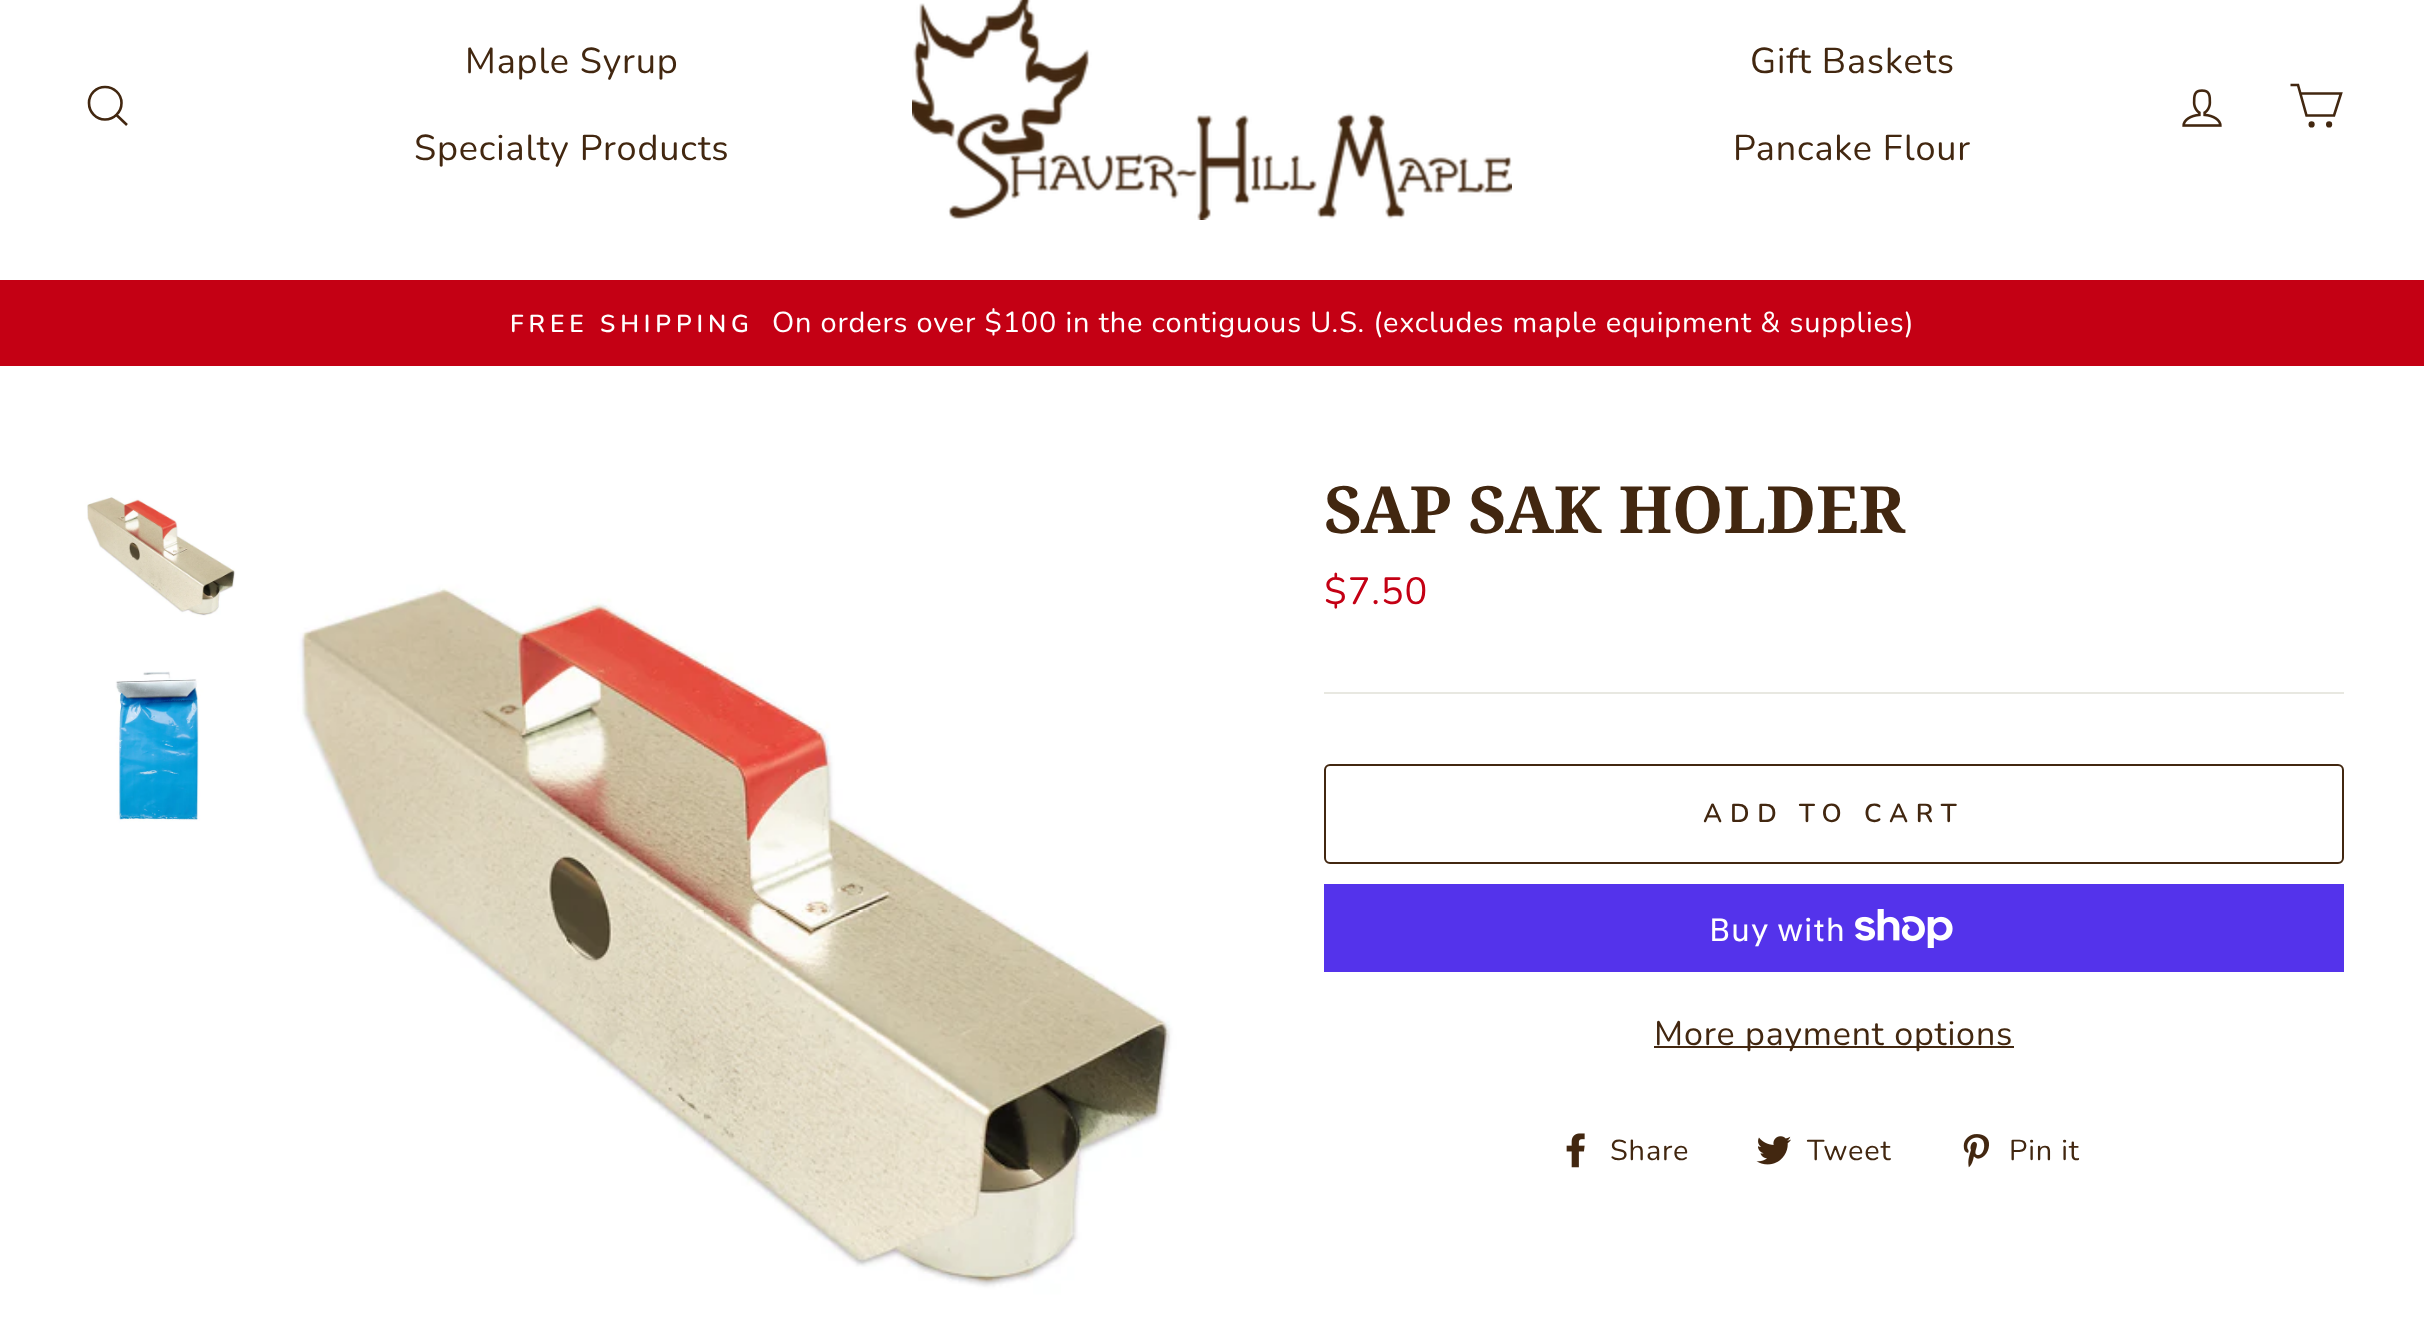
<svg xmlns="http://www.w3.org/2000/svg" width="2424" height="1328">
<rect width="100%" height="100%" fill="#fff"/>
<path d="M121.5 103c0 9-7.5 16.5-16.5 16.5c-9 0-16-7.5-16-16.5c0-9 7-16 16-16c9 0 16.5 7 16.5 16zm5.5 22l-10.5-10" fill="none" stroke="#422710" stroke-width="2.6"/>
<text x="465" y="73" style="font-family:Nunito;font-size:36px;letter-spacing:0.85px;fill:#422710">Maple Syrup</text>
<text x="414" y="160" style="font-family:Nunito;font-size:36px;letter-spacing:0.85px;fill:#422710">Specialty Products</text>
<image x="912" y="0" width="600" height="220" href="media/1.png"/>
<text x="1750" y="73" style="font-family:Nunito;font-size:36px;letter-spacing:0.85px;fill:#422710">Gift Baskets</text>
<text x="1733" y="160" style="font-family:Nunito;font-size:36px;letter-spacing:0.85px;fill:#422710">Pancake Flour</text>
<image x="2182" y="89" width="40" height="38" href="media/2.png"/>
<path d="M2300 93.5h41l-7 22h-27.5l-8.5-30.5h-7.5" fill="none" stroke="#422710" stroke-width="2.6"/>
<circle cx="2311.6" cy="124.4" r="1.8" fill="#422710" stroke="#422710" stroke-width="2.6"/>
<circle cx="2329.1" cy="124.4" r="1.8" fill="#422710" stroke="#422710" stroke-width="2.6"/>
<rect y="280" width="2424" height="86" fill="#c40014"/>
<text x="510" y="332" style="font-family:Nunito;font-size:24.5px;font-weight:600;letter-spacing:4.9px;fill:#fff">FREE SHIPPING</text>
<text x="772" y="332" style="font-family:Nunito;font-size:28.9px;letter-spacing:0.85px;fill:#fff">On orders over $100 in the contiguous U.S. (excludes maple equipment &amp; supplies)</text>
<image x="82" y="478" width="156" height="156" href="media/3.png"/>
<image x="82" y="668" width="156" height="156" href="media/4.png"/>
<image x="270" y="476" width="920" height="852" href="media/5.png"/>
<text x="1324" y="533" style="font-family:Noto Serif;font-size:65.25px;font-weight:bold;fill:#422710">SAP SAK HOLDER</text>
<text x="1324" y="604" style="font-family:Nunito;font-size:38px;letter-spacing:0.85px;fill:#c40014">$7.50</text>
<rect x="1324" y="692" width="1020" height="2" fill="#e8e8e1"/>
<rect x="1325" y="765" width="1018" height="98" rx="5" fill="none" stroke="#422710" stroke-width="2"/>
<text x="1703" y="822" style="font-family:Nunito;font-size:26px;font-weight:600;letter-spacing:7.75px;fill:#422710">ADD TO CART</text>
<rect x="1324" y="884" width="1020" height="88" fill="#5433eb"/>
<text x="1709" y="941" style="font-family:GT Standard;font-size:32px;letter-spacing:0.85px;fill:#fff">Buy with</text>
<image x="1855" y="909" width="98" height="39" href="media/6.png"/>
<rect x="1654" y="1046" width="360" height="2" fill="#422710"/>
<text x="1654" y="1045" style="font-family:Nunito;font-size:34px;letter-spacing:0.85px;fill:#422710">More payment options</text>
<image x="1566" y="1133" width="19" height="35" href="media/7.png"/>
<text x="1610" y="1160" style="font-family:Nunito;font-size:28.9px;letter-spacing:0.85px;fill:#422710">Share</text>
<image x="1756" y="1136" width="35" height="29" href="media/8.png"/>
<text x="1807" y="1160" style="font-family:Nunito;font-size:28.9px;letter-spacing:0.85px;fill:#422710">Tweet</text>
<image x="1963" y="1134" width="26" height="34" href="media/9.png"/>
<text x="2009" y="1160" style="font-family:Nunito;font-size:28.9px;letter-spacing:0.85px;fill:#422710">Pin it</text>
</svg>
